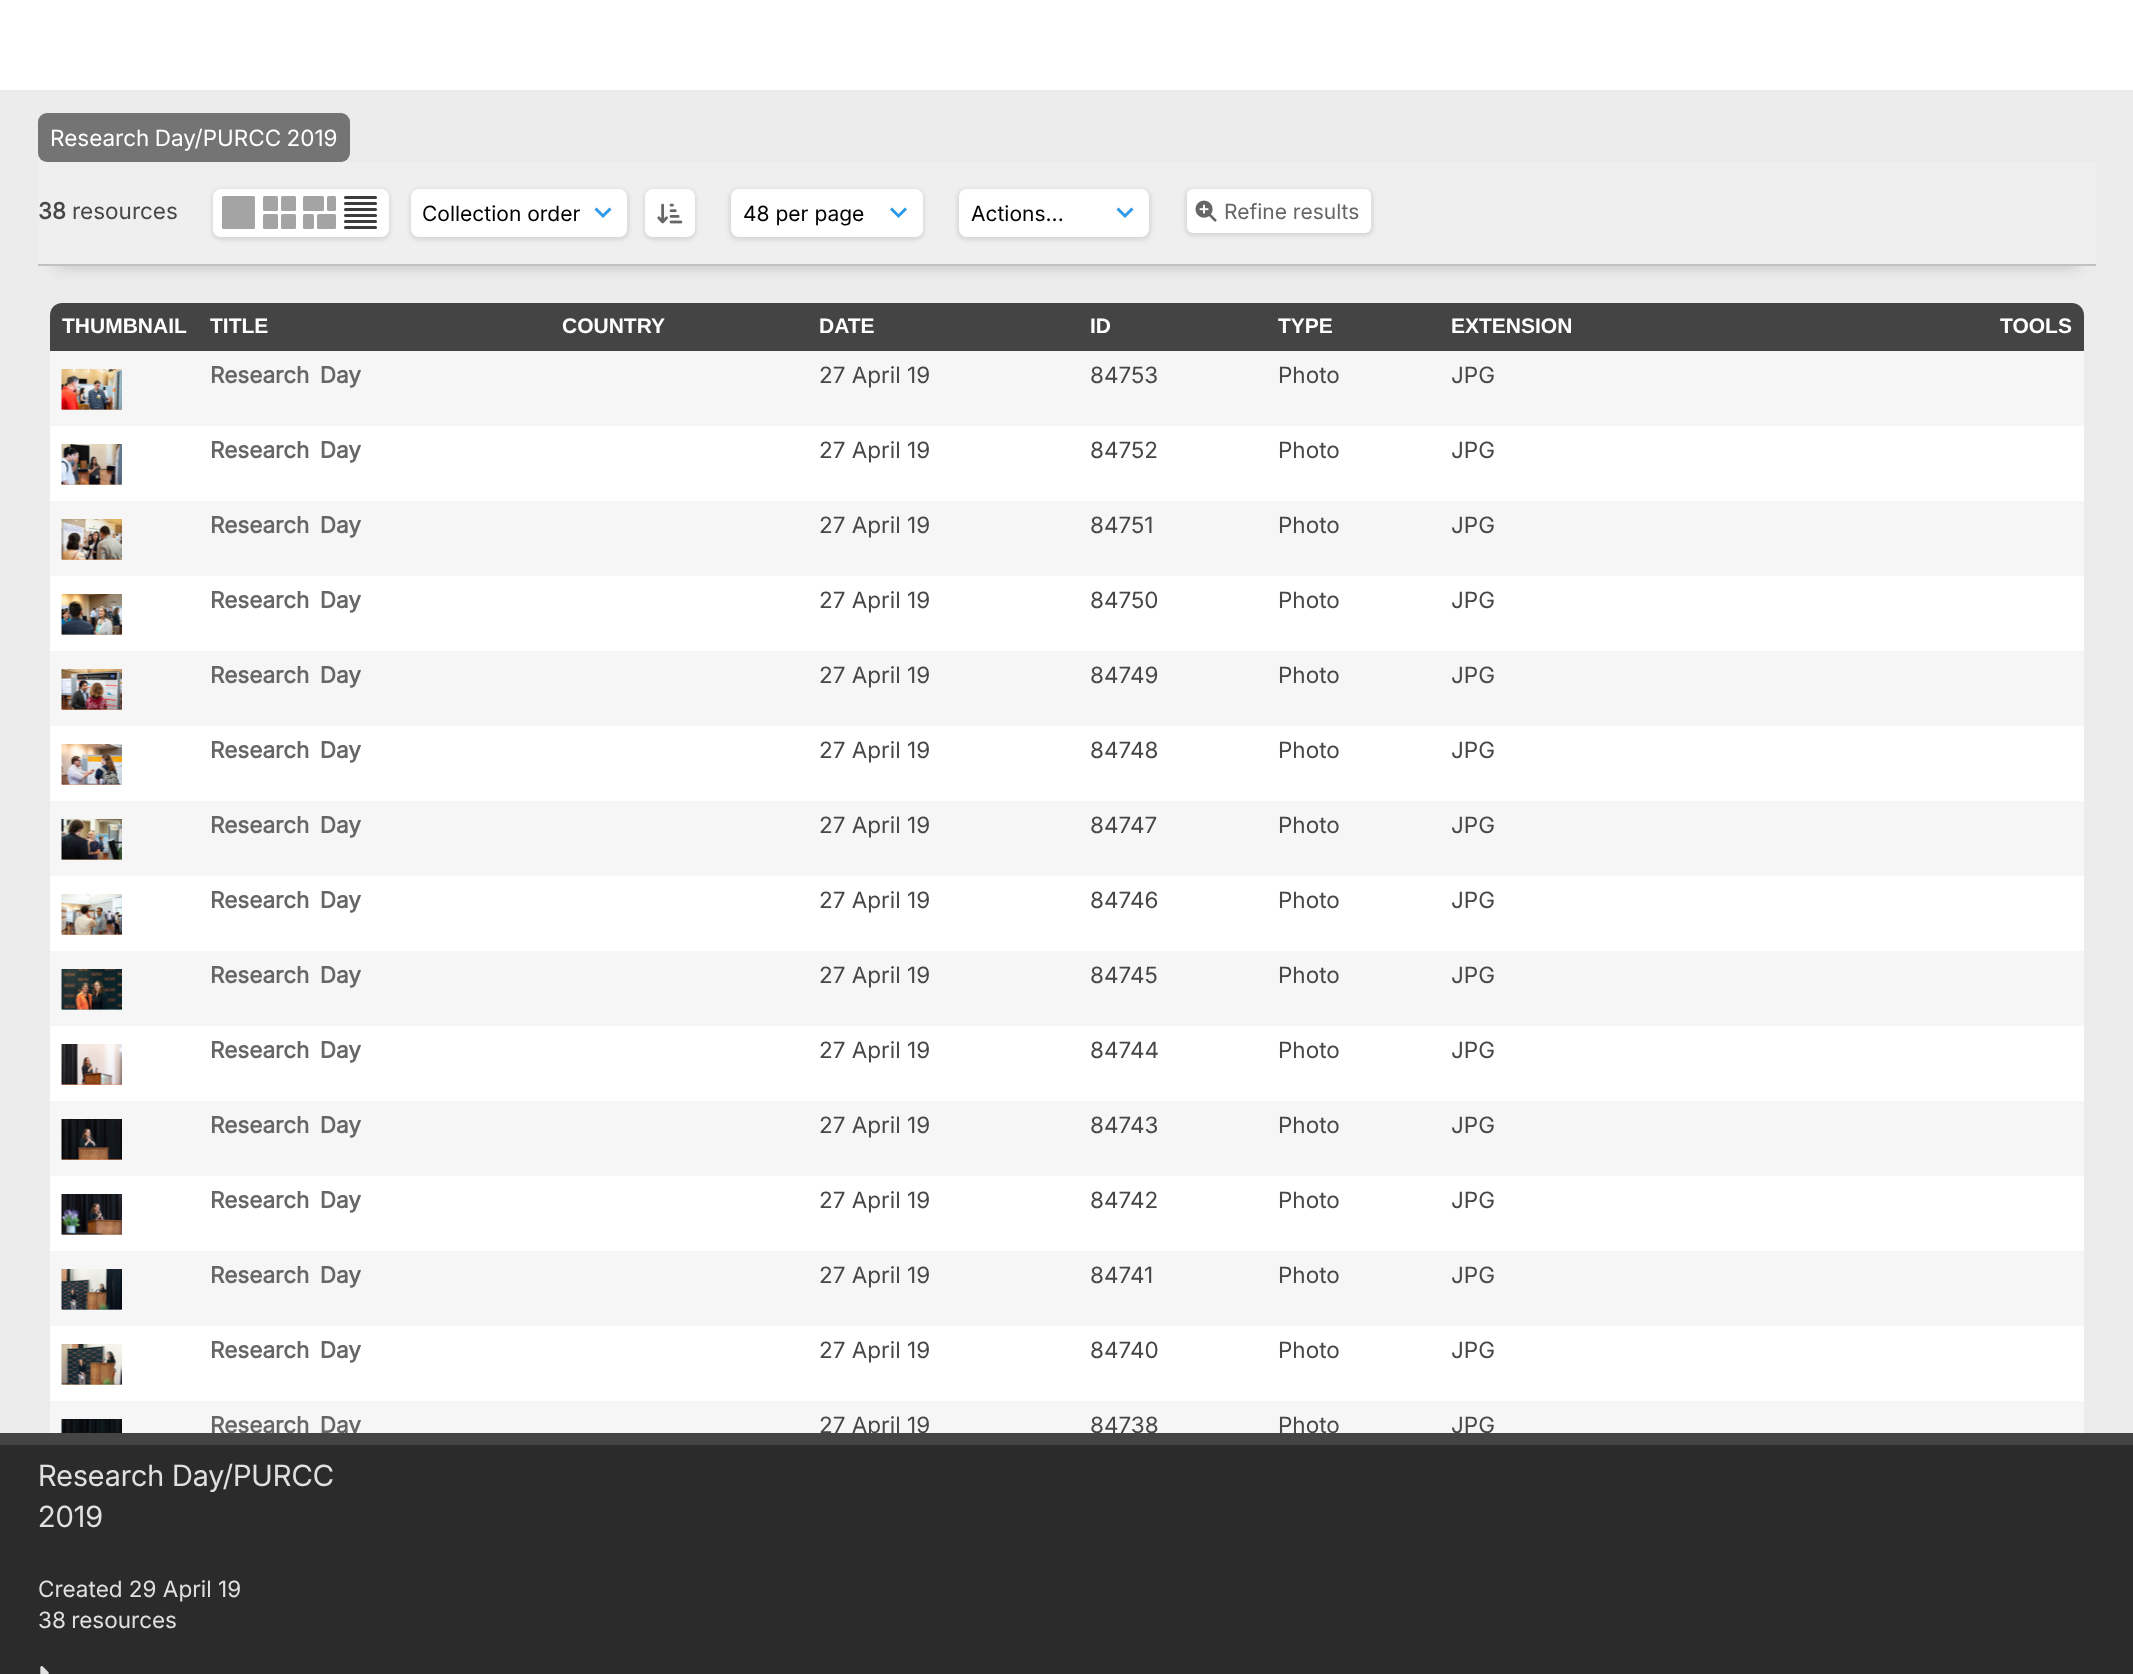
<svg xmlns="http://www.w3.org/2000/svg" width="2133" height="1674">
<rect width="100%" height="100%" fill="#ececec"/>
<rect width="2133" height="90" fill="#fff"/>
<rect x="38" y="113" width="312" height="49" rx="9" fill="#747474"/>
<text x="50" y="146" word-spacing="-1" style="font-family:Inter;font-size:22.5px;fill:#fff">Research Day/PURCC 2019</text>
<rect x="56" y="198" width="2022" height="68" fill="#bbb" filter="blur(7.5px)"/>
<rect x="38" y="162" width="2058" height="102" fill="#efefef"/>
<rect x="38" y="264" width="2058" height="2" fill="#c1c1c1"/>
<text x="38" y="219" style="font-family:Inter;font-size:22.5px;font-weight:bold;fill:#474747">38</text>
<text x="72" y="219" style="font-family:Inter;font-size:22.5px;fill:#474747">resources</text>
<rect x="212" y="189" width="178" height="51" rx="9" fill="#0000001a" filter="blur(2px)"/>
<rect x="213" y="189" width="176" height="48" rx="8" fill="#fff"/>
<rect x="222" y="196" width="33" height="33" rx="1.5" fill="#a4a4a4"/>
<rect x="281" y="196" width="15" height="15" rx="1.5" fill="#a4a4a4"/>
<rect x="263" y="214" width="15" height="15" rx="1.5" fill="#a4a4a4"/>
<rect x="281" y="214" width="15" height="15" rx="1.5" fill="#a4a4a4"/>
<rect x="263" y="196" width="15" height="15" rx="1.5" fill="#a4a4a4"/>
<rect x="303" y="196" width="21" height="15" rx="1.5" fill="#a4a4a4"/>
<rect x="327" y="196" width="9" height="15" rx="1.5" fill="#a4a4a4"/>
<rect x="317" y="214" width="19" height="15" rx="1.5" fill="#a4a4a4"/>
<rect x="303" y="214" width="11" height="15" rx="1.5" fill="#a4a4a4"/>
<rect x="344" y="196" width="33" height="3" rx="1.5" fill="#3c3c3c"/>
<rect x="344" y="202" width="33" height="3" rx="1.5" fill="#3c3c3c"/>
<rect x="344" y="208" width="33" height="3" rx="1.5" fill="#3c3c3c"/>
<rect x="344" y="214" width="33" height="3" rx="1.5" fill="#3c3c3c"/>
<rect x="344" y="220" width="33" height="3" rx="1.5" fill="#3c3c3c"/>
<rect x="344" y="226" width="33" height="3" rx="1.5" fill="#3c3c3c"/>
<rect x="410" y="189" width="219" height="51" rx="9" fill="#0000001a" filter="blur(2px)"/>
<rect x="411" y="189" width="216" height="48" rx="8" fill="#fff"/>
<path d="M610.5 208.5l-7.5 7.5l-7.5-7.5" fill="none" stroke="#2e99e6" stroke-width="3"/>
<text x="422" y="221" style="font-family:Inter;font-size:21px;fill:#000">Collection order</text>
<rect x="644" y="189" width="52" height="51" rx="9" fill="#0000001a" filter="blur(2px)"/>
<rect x="645" y="189" width="50" height="48" rx="8" fill="#fff"/>
<image x="657" y="203" width="26" height="21" href="media/1.png"/>
<rect x="729" y="189" width="195" height="51" rx="9" fill="#0000001a" filter="blur(2px)"/>
<rect x="731" y="189" width="192" height="48" rx="8" fill="#fff"/>
<path d="M906 208.5l-7.5 7.5l-7.5-7.5" fill="none" stroke="#2e99e6" stroke-width="3"/>
<text x="743" y="221" style="font-family:Inter;font-size:21px;fill:#000">48 per page</text>
<rect x="957" y="189" width="194" height="51" rx="9" fill="#0000001a" filter="blur(2px)"/>
<rect x="959" y="189" width="190" height="48" rx="8" fill="#fff"/>
<path d="M1132.5 208.5l-7.5 7.5l-7.5-7.5" fill="none" stroke="#2e99e6" stroke-width="3"/>
<text x="971" y="221" style="font-family:Inter;font-size:21px;fill:#000">Actions...</text>
<rect x="1185" y="189" width="188" height="47" rx="8" fill="#0000001a" filter="blur(2px)"/>
<rect x="1187" y="189" width="184" height="44" rx="6" fill="#fff"/>
<image x="1195" y="200" width="22" height="22" href="media/2.png"/>
<text x="1224" y="219" style="font-family:Inter;font-size:21px;fill:#666">Refine results</text>
<path d="M62 303h2010c6.5 0 12 5.5 12 12v1118h-2034v-1118c0-6.5 5.5-12 12-12z" fill="#fff"/>
<path d="M62 303h2010c6.5 0 12 5.5 12 12v36h-2034v-36c0-6.5 5.5-12 12-12z" fill="#444"/>
<text x="62" y="333" style="font-family:Liberation Sans;font-size:21px;font-weight:bold;fill:#fff">THUMBNAIL</text>
<text x="210" y="333" style="font-family:Liberation Sans;font-size:21px;font-weight:bold;fill:#fff">TITLE</text>
<text x="562" y="333" style="font-family:Liberation Sans;font-size:21px;font-weight:bold;fill:#fff">COUNTRY</text>
<text x="819" y="333" style="font-family:Liberation Sans;font-size:21px;font-weight:bold;fill:#fff">DATE</text>
<text x="1090" y="333" style="font-family:Liberation Sans;font-size:21px;font-weight:bold;fill:#fff">ID</text>
<text x="1278" y="333" style="font-family:Liberation Sans;font-size:21px;font-weight:bold;fill:#fff">TYPE</text>
<text x="1451" y="333" style="font-family:Liberation Sans;font-size:21px;font-weight:bold;fill:#fff">EXTENSION</text>
<text x="2000" y="333" style="font-family:Liberation Sans;font-size:21px;font-weight:bold;fill:#fff">TOOLS</text>
<rect x="50" y="351" width="2034" height="75" fill="#f6f6f6"/>
<rect x="62" y="409" width="60" height="1" fill="#d6ad8e"/>
<image x="61" y="369" width="61" height="41" href="media/3.png"/>
<text x="210" y="383" word-spacing="4" style="font-family:Inter;font-size:22.5px;font-weight:bold;fill:#666">Research Day</text>
<text x="819" y="383" style="font-family:Inter;font-size:22.5px;fill:#474747">27 April 19</text>
<text x="1090" y="383" style="font-family:Inter;font-size:22.5px;fill:#474747">84753</text>
<text x="1278" y="383" style="font-family:Inter;font-size:22.5px;fill:#474747">Photo</text>
<text x="1451" y="383" style="font-family:Inter;font-size:22.5px;fill:#474747">JPG</text>
<rect x="62" y="484" width="60" height="1" fill="#d9aa8b"/>
<image x="61" y="444" width="61" height="41" href="media/4.png"/>
<text x="210" y="458" word-spacing="4" style="font-family:Inter;font-size:22.5px;font-weight:bold;fill:#666">Research Day</text>
<text x="819" y="458" style="font-family:Inter;font-size:22.5px;fill:#474747">27 April 19</text>
<text x="1090" y="458" style="font-family:Inter;font-size:22.5px;fill:#474747">84752</text>
<text x="1278" y="458" style="font-family:Inter;font-size:22.5px;fill:#474747">Photo</text>
<text x="1451" y="458" style="font-family:Inter;font-size:22.5px;fill:#474747">JPG</text>
<rect x="50" y="501" width="2034" height="75" fill="#f6f6f6"/>
<rect x="62" y="559" width="60" height="1" fill="#f5ad6f"/>
<image x="61" y="519" width="61" height="41" href="media/5.png"/>
<text x="210" y="533" word-spacing="4" style="font-family:Inter;font-size:22.5px;font-weight:bold;fill:#666">Research Day</text>
<text x="819" y="533" style="font-family:Inter;font-size:22.5px;fill:#474747">27 April 19</text>
<text x="1090" y="533" style="font-family:Inter;font-size:22.5px;fill:#474747">84751</text>
<text x="1278" y="533" style="font-family:Inter;font-size:22.5px;fill:#474747">Photo</text>
<text x="1451" y="533" style="font-family:Inter;font-size:22.5px;fill:#474747">JPG</text>
<rect x="62" y="634" width="60" height="1" fill="#c9b39b"/>
<image x="61" y="594" width="61" height="41" href="media/6.png"/>
<text x="210" y="608" word-spacing="4" style="font-family:Inter;font-size:22.5px;font-weight:bold;fill:#666">Research Day</text>
<text x="819" y="608" style="font-family:Inter;font-size:22.5px;fill:#474747">27 April 19</text>
<text x="1090" y="608" style="font-family:Inter;font-size:22.5px;fill:#474747">84750</text>
<text x="1278" y="608" style="font-family:Inter;font-size:22.5px;fill:#474747">Photo</text>
<text x="1451" y="608" style="font-family:Inter;font-size:22.5px;fill:#474747">JPG</text>
<rect x="50" y="651" width="2034" height="75" fill="#f6f6f6"/>
<rect x="62" y="709" width="60" height="1" fill="#e79e82"/>
<image x="61" y="669" width="61" height="41" href="media/7.png"/>
<text x="210" y="683" word-spacing="4" style="font-family:Inter;font-size:22.5px;font-weight:bold;fill:#666">Research Day</text>
<text x="819" y="683" style="font-family:Inter;font-size:22.5px;fill:#474747">27 April 19</text>
<text x="1090" y="683" style="font-family:Inter;font-size:22.5px;fill:#474747">84749</text>
<text x="1278" y="683" style="font-family:Inter;font-size:22.5px;fill:#474747">Photo</text>
<text x="1451" y="683" style="font-family:Inter;font-size:22.5px;fill:#474747">JPG</text>
<rect x="62" y="784" width="60" height="1" fill="#e2a283"/>
<image x="61" y="744" width="61" height="41" href="media/8.png"/>
<text x="210" y="758" word-spacing="4" style="font-family:Inter;font-size:22.5px;font-weight:bold;fill:#666">Research Day</text>
<text x="819" y="758" style="font-family:Inter;font-size:22.5px;fill:#474747">27 April 19</text>
<text x="1090" y="758" style="font-family:Inter;font-size:22.5px;fill:#474747">84748</text>
<text x="1278" y="758" style="font-family:Inter;font-size:22.5px;fill:#474747">Photo</text>
<text x="1451" y="758" style="font-family:Inter;font-size:22.5px;fill:#474747">JPG</text>
<rect x="50" y="801" width="2034" height="75" fill="#f6f6f6"/>
<rect x="62" y="859" width="60" height="1" fill="#dfb784"/>
<image x="61" y="819" width="61" height="41" href="media/9.png"/>
<text x="210" y="833" word-spacing="4" style="font-family:Inter;font-size:22.5px;font-weight:bold;fill:#666">Research Day</text>
<text x="819" y="833" style="font-family:Inter;font-size:22.5px;fill:#474747">27 April 19</text>
<text x="1090" y="833" style="font-family:Inter;font-size:22.5px;fill:#474747">84747</text>
<text x="1278" y="833" style="font-family:Inter;font-size:22.5px;fill:#474747">Photo</text>
<text x="1451" y="833" style="font-family:Inter;font-size:22.5px;fill:#474747">JPG</text>
<rect x="62" y="934" width="60" height="1" fill="#e6af7e"/>
<image x="61" y="894" width="61" height="41" href="media/10.png"/>
<text x="210" y="908" word-spacing="4" style="font-family:Inter;font-size:22.5px;font-weight:bold;fill:#666">Research Day</text>
<text x="819" y="908" style="font-family:Inter;font-size:22.5px;fill:#474747">27 April 19</text>
<text x="1090" y="908" style="font-family:Inter;font-size:22.5px;fill:#474747">84746</text>
<text x="1278" y="908" style="font-family:Inter;font-size:22.5px;fill:#474747">Photo</text>
<text x="1451" y="908" style="font-family:Inter;font-size:22.5px;fill:#474747">JPG</text>
<rect x="50" y="951" width="2034" height="75" fill="#f6f6f6"/>
<rect x="62" y="1009" width="60" height="1" fill="#9bc8c7"/>
<image x="61" y="969" width="61" height="41" href="media/11.png"/>
<text x="210" y="983" word-spacing="4" style="font-family:Inter;font-size:22.5px;font-weight:bold;fill:#666">Research Day</text>
<text x="819" y="983" style="font-family:Inter;font-size:22.5px;fill:#474747">27 April 19</text>
<text x="1090" y="983" style="font-family:Inter;font-size:22.5px;fill:#474747">84745</text>
<text x="1278" y="983" style="font-family:Inter;font-size:22.5px;fill:#474747">Photo</text>
<text x="1451" y="983" style="font-family:Inter;font-size:22.5px;fill:#474747">JPG</text>
<rect x="62" y="1084" width="60" height="1" fill="#fe9765"/>
<image x="61" y="1044" width="61" height="41" href="media/12.png"/>
<text x="210" y="1058" word-spacing="4" style="font-family:Inter;font-size:22.5px;font-weight:bold;fill:#666">Research Day</text>
<text x="819" y="1058" style="font-family:Inter;font-size:22.5px;fill:#474747">27 April 19</text>
<text x="1090" y="1058" style="font-family:Inter;font-size:22.5px;fill:#474747">84744</text>
<text x="1278" y="1058" style="font-family:Inter;font-size:22.5px;fill:#474747">Photo</text>
<text x="1451" y="1058" style="font-family:Inter;font-size:22.5px;fill:#474747">JPG</text>
<rect x="50" y="1101" width="2034" height="75" fill="#f6f6f6"/>
<rect x="62" y="1159" width="60" height="1" fill="#f5a36f"/>
<image x="61" y="1119" width="61" height="41" href="media/13.png"/>
<text x="210" y="1133" word-spacing="4" style="font-family:Inter;font-size:22.5px;font-weight:bold;fill:#666">Research Day</text>
<text x="819" y="1133" style="font-family:Inter;font-size:22.5px;fill:#474747">27 April 19</text>
<text x="1090" y="1133" style="font-family:Inter;font-size:22.5px;fill:#474747">84743</text>
<text x="1278" y="1133" style="font-family:Inter;font-size:22.5px;fill:#474747">Photo</text>
<text x="1451" y="1133" style="font-family:Inter;font-size:22.5px;fill:#474747">JPG</text>
<rect x="62" y="1234" width="60" height="1" fill="#c8ab8d"/>
<image x="61" y="1194" width="61" height="41" href="media/14.png"/>
<text x="210" y="1208" word-spacing="4" style="font-family:Inter;font-size:22.5px;font-weight:bold;fill:#666">Research Day</text>
<text x="819" y="1208" style="font-family:Inter;font-size:22.5px;fill:#474747">27 April 19</text>
<text x="1090" y="1208" style="font-family:Inter;font-size:22.5px;fill:#474747">84742</text>
<text x="1278" y="1208" style="font-family:Inter;font-size:22.5px;fill:#474747">Photo</text>
<text x="1451" y="1208" style="font-family:Inter;font-size:22.5px;fill:#474747">JPG</text>
<rect x="50" y="1251" width="2034" height="75" fill="#f6f6f6"/>
<rect x="62" y="1309" width="60" height="1" fill="#a3b7bf"/>
<image x="61" y="1269" width="61" height="41" href="media/15.png"/>
<text x="210" y="1283" word-spacing="4" style="font-family:Inter;font-size:22.5px;font-weight:bold;fill:#666">Research Day</text>
<text x="819" y="1283" style="font-family:Inter;font-size:22.5px;fill:#474747">27 April 19</text>
<text x="1090" y="1283" style="font-family:Inter;font-size:22.5px;fill:#474747">84741</text>
<text x="1278" y="1283" style="font-family:Inter;font-size:22.5px;fill:#474747">Photo</text>
<text x="1451" y="1283" style="font-family:Inter;font-size:22.5px;fill:#474747">JPG</text>
<rect x="62" y="1384" width="60" height="1" fill="#cdb997"/>
<image x="61" y="1344" width="61" height="41" href="media/16.png"/>
<text x="210" y="1358" word-spacing="4" style="font-family:Inter;font-size:22.5px;font-weight:bold;fill:#666">Research Day</text>
<text x="819" y="1358" style="font-family:Inter;font-size:22.5px;fill:#474747">27 April 19</text>
<text x="1090" y="1358" style="font-family:Inter;font-size:22.5px;fill:#474747">84740</text>
<text x="1278" y="1358" style="font-family:Inter;font-size:22.5px;fill:#474747">Photo</text>
<text x="1451" y="1358" style="font-family:Inter;font-size:22.5px;fill:#474747">JPG</text>
<rect x="50" y="1401" width="2034" height="32" fill="#f6f6f6"/>
<image x="61" y="1419" width="61" height="14" href="media/17.png"/>
<text x="210" y="1433" word-spacing="4" style="font-family:Inter;font-size:22.5px;font-weight:bold;fill:#666">Research Day</text>
<text x="819" y="1433" style="font-family:Inter;font-size:22.5px;fill:#474747">27 April 19</text>
<text x="1090" y="1433" style="font-family:Inter;font-size:22.5px;fill:#474747">84738</text>
<text x="1278" y="1433" style="font-family:Inter;font-size:22.5px;fill:#474747">Photo</text>
<text x="1451" y="1433" style="font-family:Inter;font-size:22.5px;fill:#474747">JPG</text>
<rect y="1433" width="2133" height="12" fill="#444"/>
<rect y="1445" width="2133" height="229" fill="#2b2b2b"/>
<text x="38" y="1486" style="font-family:'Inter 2';font-size:29.25px;fill:#e0e0e0">Research Day/PURCC</text>
<text x="38" y="1527" style="font-family:'Inter 2';font-size:29.25px;fill:#e0e0e0">2019</text>
<text x="38" y="1597" style="font-family:Inter;font-size:22.5px;fill:#e0e0e0">Created 29 April 19</text>
<text x="38" y="1628" word-spacing="-1" style="font-family:Inter;font-size:22.5px;fill:#e0e0e0">38 resources</text>
<image x="40" y="1666" width="9" height="8" href="media/18.png"/>
</svg>
